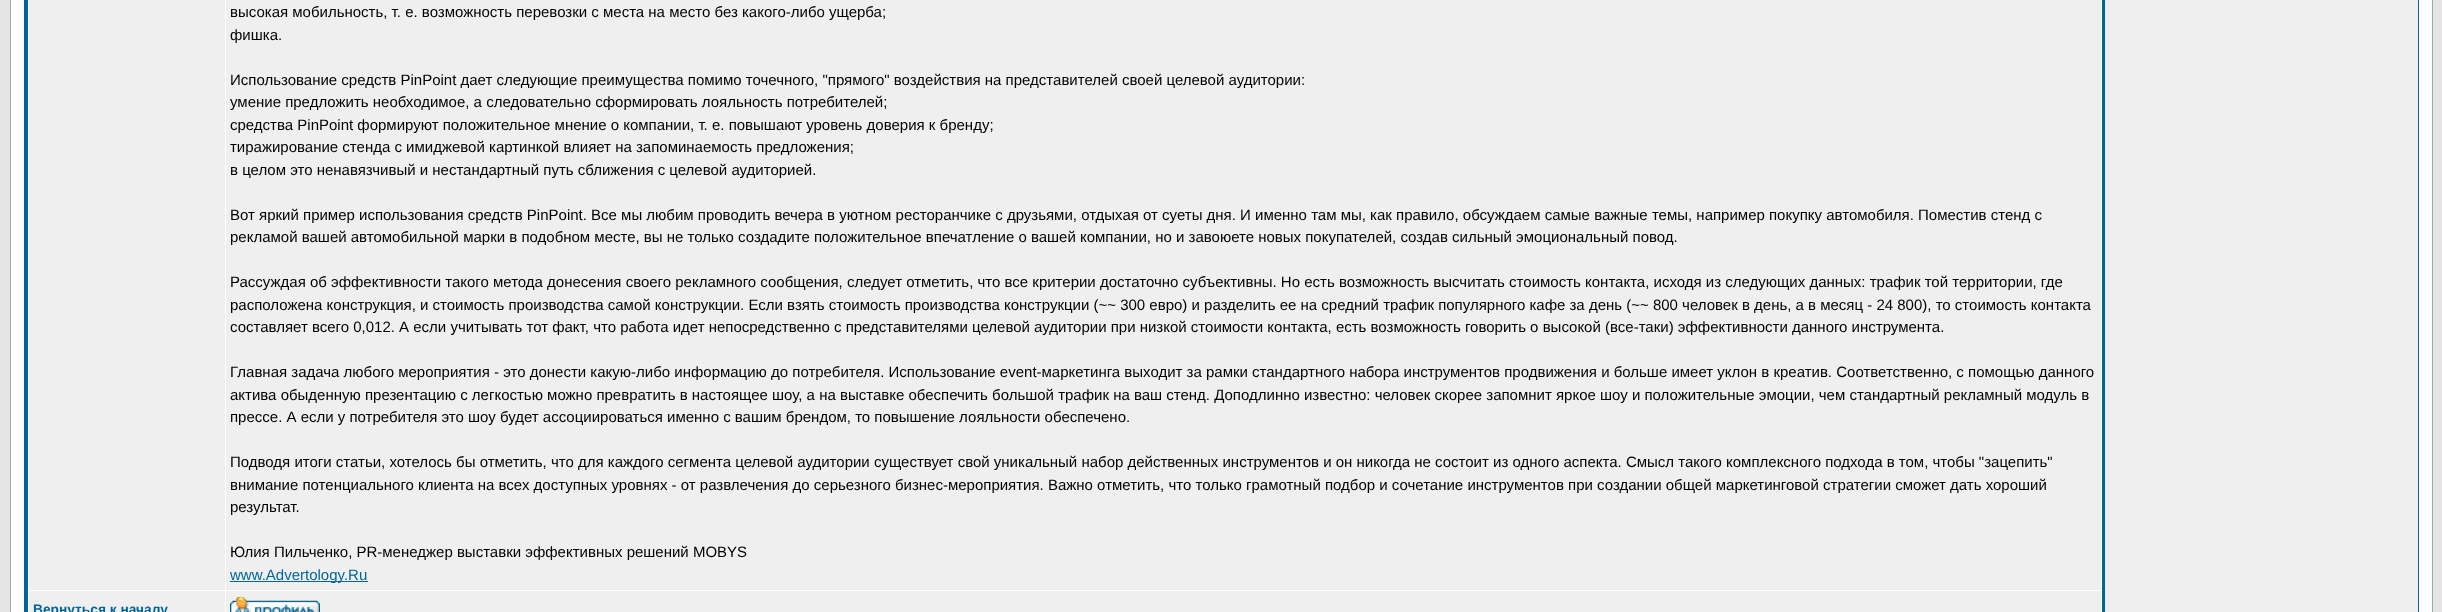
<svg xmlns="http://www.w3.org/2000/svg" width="2442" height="612">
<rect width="100%" height="100%" fill="#e5e5e5"/>
<rect x="10.5" y="-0.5" width="2422" height="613" fill="#fff" stroke="#98aab1"/>
<rect x="2105" width="313" height="612" fill="#efefef"/>
<rect x="24.5" y="-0.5" width="2394" height="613" fill="none" stroke="#069"/>
<rect x="26.5" y="-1.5" width="2077" height="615" fill="none" stroke="#069" stroke-width="3"/>
<rect x="29" width="196" height="590" fill="#efefef"/>
<rect x="226" width="1875" height="590" fill="#efefef"/>
<text x="230" y="17" style="font-family:Liberation Sans;font-size:15px;fill:#000">высокая мобильность, т. е. возможность перевозки с места на место без какого-либо ущерба;</text>
<text x="230" y="40" style="font-family:Liberation Sans;font-size:15px;fill:#000">фишка.</text>
<text x="230" y="85" style="font-family:Liberation Sans;font-size:15px;fill:#000">Использование средств PinPoint дает следующие преимущества помимо точечного, "прямого" воздействия на представителей своей целевой аудитории:</text>
<text x="230" y="107" style="font-family:Liberation Sans;font-size:15px;fill:#000">умение предложить необходимое, а следовательно сформировать лояльность потребителей;</text>
<text x="230" y="130" style="font-family:Liberation Sans;font-size:15px;fill:#000">средства PinPoint формируют положительное мнение о компании, т. е. повышают уровень доверия к бренду;</text>
<text x="230" y="152" style="font-family:Liberation Sans;font-size:15px;fill:#000">тиражирование стенда с имиджевой картинкой влияет на запоминаемость предложения;</text>
<text x="230" y="175" style="font-family:Liberation Sans;font-size:15px;fill:#000">в целом это ненавязчивый и нестандартный путь сближения с целевой аудиторией.</text>
<text x="230" y="220" style="font-family:Liberation Sans;font-size:15px;fill:#000">Вот яркий пример использования средств PinPoint. Все мы любим проводить вечера в уютном ресторанчике с друзьями, отдыхая от суеты дня. И именно там мы, как правило, обсуждаем самые важные темы, например покупку автомобиля. Поместив стенд с</text>
<text x="230" y="242" style="font-family:Liberation Sans;font-size:15px;fill:#000">рекламой вашей автомобильной марки в подобном месте, вы не только создадите положительное впечатление о вашей компании, но и завоюете новых покупателей, создав сильный эмоциональный повод.</text>
<text x="230" y="287" style="font-family:Liberation Sans;font-size:15px;fill:#000">Рассуждая об эффективности такого метода донесения своего рекламного сообщения, следует отметить, что все критерии достаточно субъективны. Но есть возможность высчитать стоимость контакта, исходя из следующих данных: трафик той территории, где</text>
<text x="230" y="310" style="font-family:Liberation Sans;font-size:15px;fill:#000">расположена конструкция, и стоимость производства самой конструкции. Если взять стоимость производства конструкции (~~ 300 евро) и разделить ее на средний трафик популярного кафе за день (~~ 800 человек в день, а в месяц - 24 800), то стоимость контакта</text>
<text x="230" y="332" style="font-family:Liberation Sans;font-size:15px;fill:#000">составляет всего 0,012. А если учитывать тот факт, что работа идет непосредственно с представителями целевой аудитории при низкой стоимости контакта, есть возможность говорить о высокой (все-таки) эффективности данного инструмента.</text>
<text x="230" y="377" style="font-family:Liberation Sans;font-size:15px;fill:#000">Главная задача любого мероприятия - это донести какую-либо информацию до потребителя. Использование event-маркетинга выходит за рамки стандартного набора инструментов продвижения и больше имеет уклон в креатив. Соответственно, с помощью данного</text>
<text x="230" y="400" style="font-family:Liberation Sans;font-size:15px;fill:#000">актива обыденную презентацию с легкостью можно превратить в настоящее шоу, а на выставке обеспечить большой трафик на ваш стенд. Доподлинно известно: человек скорее запомнит яркое шоу и положительные эмоции, чем стандартный рекламный модуль в</text>
<text x="230" y="422" style="font-family:Liberation Sans;font-size:15px;fill:#000">прессе. А если у потребителя это шоу будет ассоциироваться именно с вашим брендом, то повышение лояльности обеспечено.</text>
<text x="230" y="467" style="font-family:Liberation Sans;font-size:15px;fill:#000">Подводя итоги статьи, хотелось бы отметить, что для каждого сегмента целевой аудитории существует свой уникальный набор действенных инструментов и он никогда не состоит из одного аспекта. Смысл такого комплексного подхода в том, чтобы "зацепить"</text>
<text x="230" y="490" style="font-family:Liberation Sans;font-size:15px;fill:#000">внимание потенциального клиента на всех доступных уровнях - от развлечения до серьезного бизнес-мероприятия. Важно отметить, что только грамотный подбор и сочетание инструментов при создании общей маркетинговой стратегии сможет дать хороший</text>
<text x="230" y="512" style="font-family:Liberation Sans;font-size:15px;fill:#000">результат.</text>
<text x="230" y="557" style="font-family:Liberation Sans;font-size:15px;fill:#000">Юлия Пильченко, PR-менеджер выставки эффективных решений MOBYS</text>
<rect x="230" y="581" width="138" height="1" fill="#069"/>
<text x="230" y="580" style="font-family:Liberation Sans;font-size:15px;fill:#069">www.Advertology.Ru</text>
<rect x="29" y="591" width="196" height="21" fill="#efefef"/>
<text x="33" y="614" style="font-family:Liberation Sans;font-size:13.75px;font-weight:bold;fill:#069">Вернуться к началу</text>
<rect x="226" y="591" width="1875" height="21" fill="#efefef"/>
<image x="230" y="597" width="90" height="15" href="media/1.png"/>
</svg>
